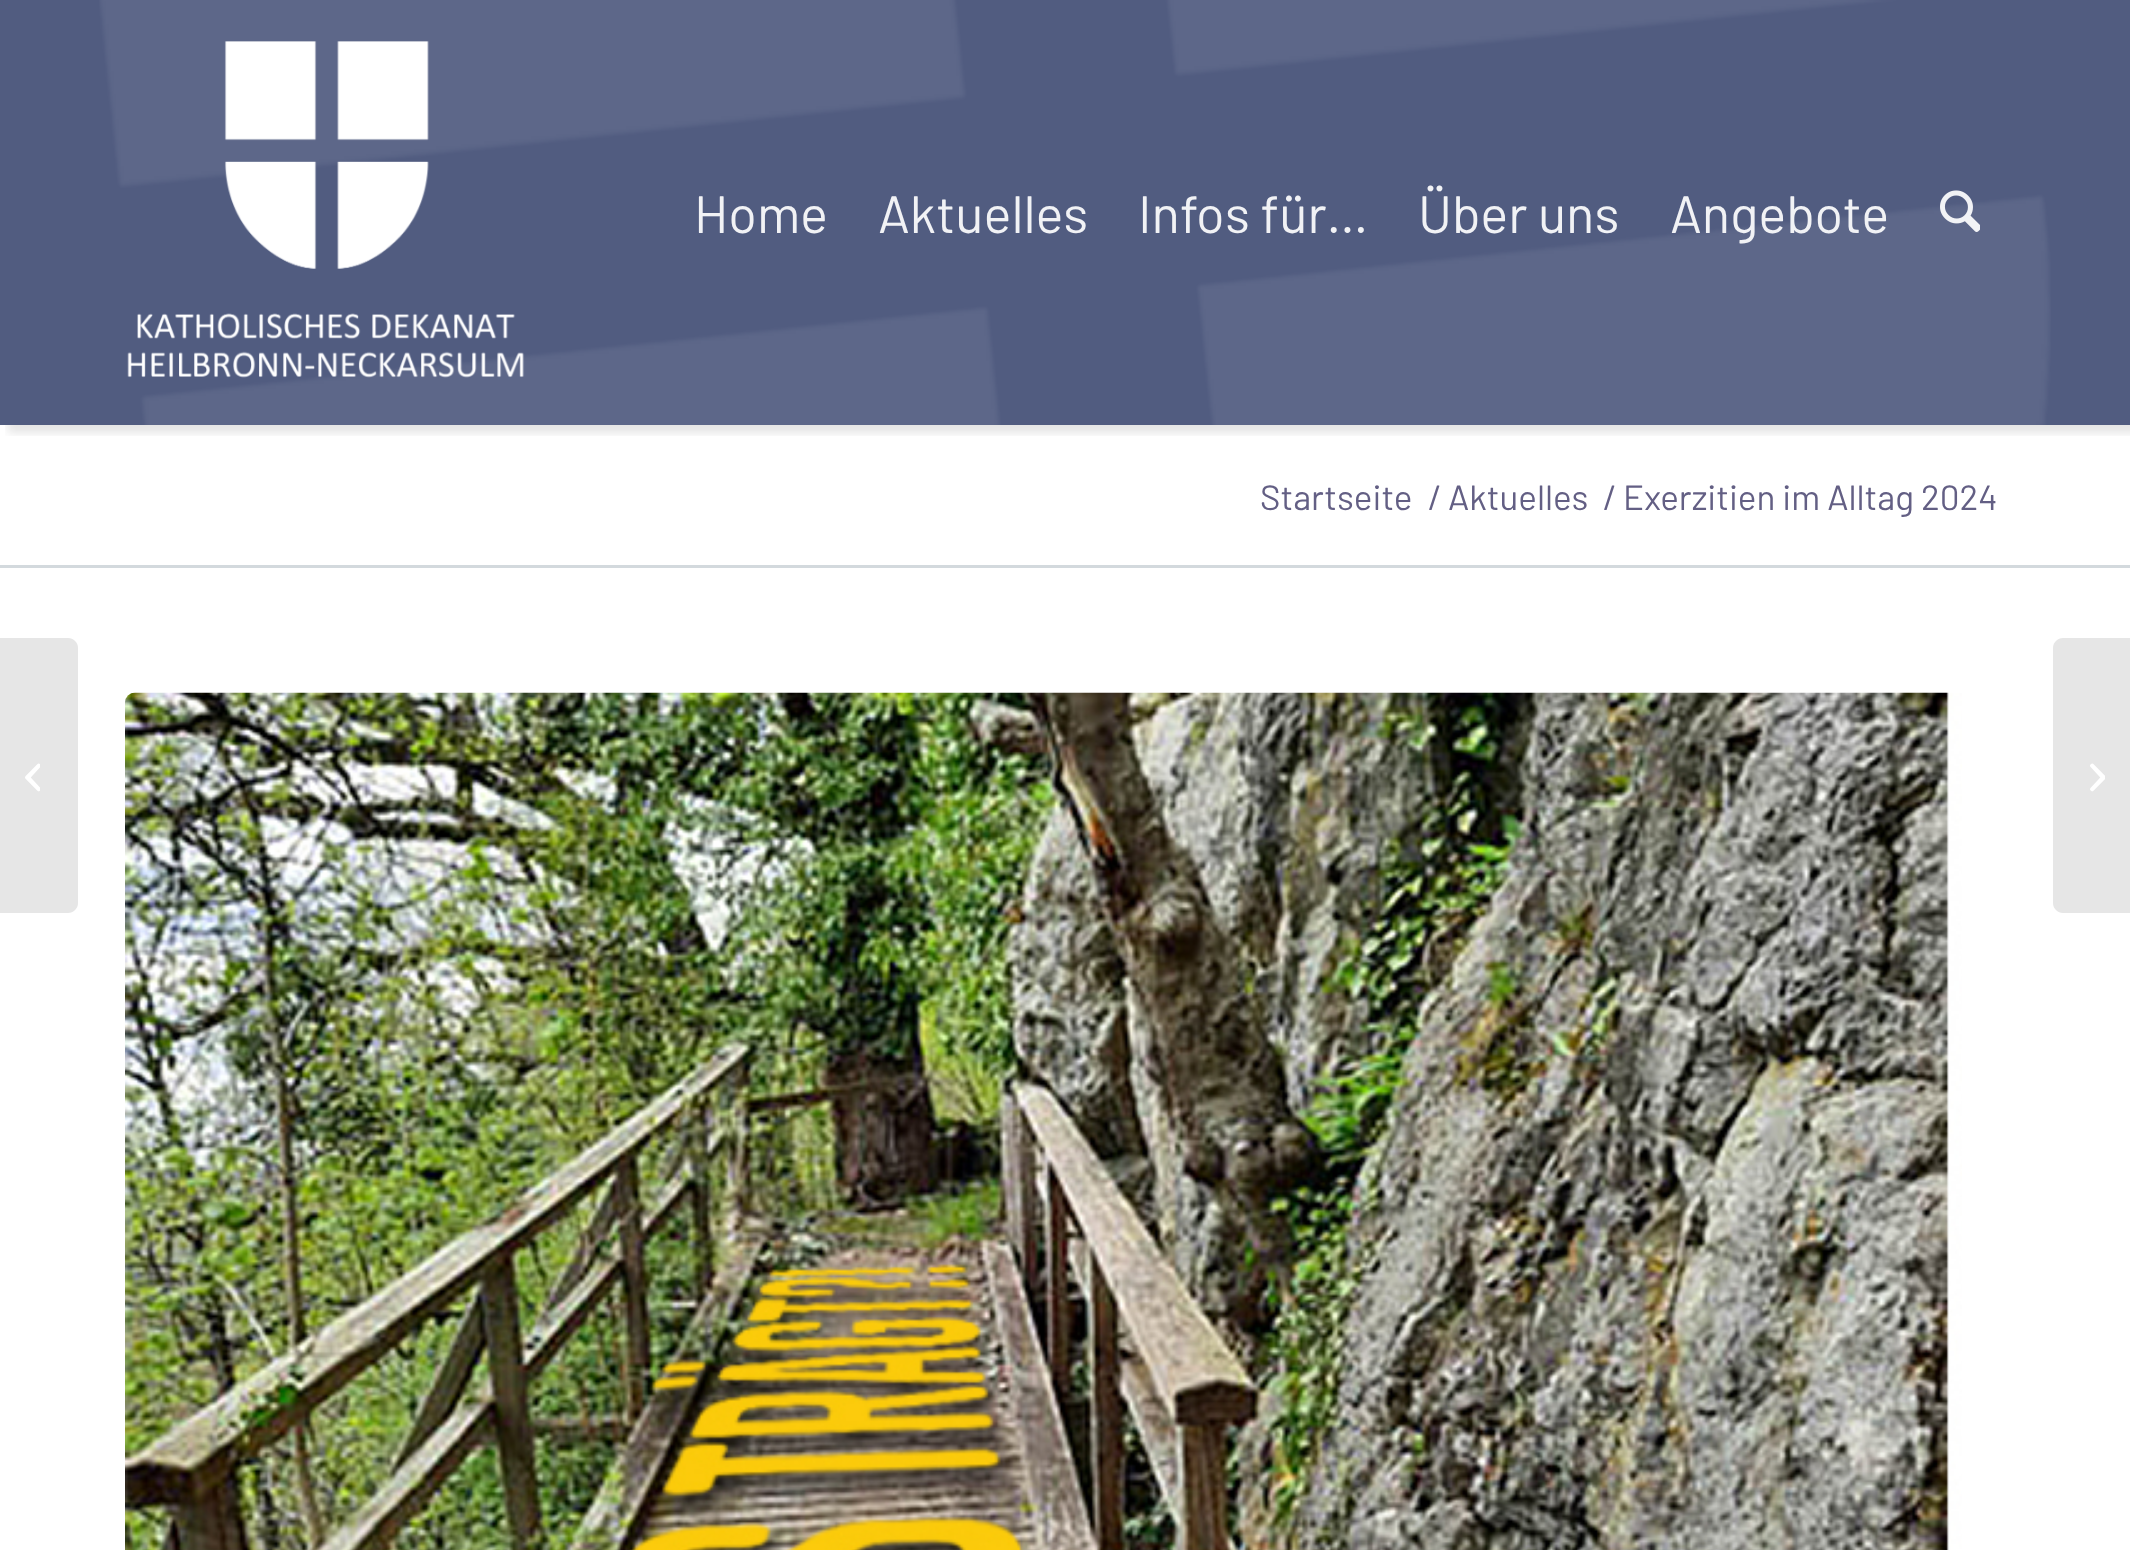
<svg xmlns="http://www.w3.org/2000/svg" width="2130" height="1550">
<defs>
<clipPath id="clip1"><rect x="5" y="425" width="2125" height="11"/></clipPath>
</defs>
<rect width="100%" height="100%" fill="#515c80"/>
<rect y="425" width="2130" height="140" fill="#fff"/>
<g clip-path="url(#clip1)">
<rect x="8" y="8" width="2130" height="425" fill="#0000001a" filter="blur(4px)"/>
</g>
<image x="99" y="0" width="1952" height="425" href="media/1.png"/>
<image x="127" y="41" width="398" height="337" href="media/2.png"/>
<text x="694" y="233" style="font-family:Barlow;font-size:52.5px;fill:#f1f2f5">Home</text>
<text x="878" y="233" style="font-family:Barlow;font-size:52.5px;fill:#f1f2f5">Aktuelles</text>
<text x="1138" y="233" style="font-family:Barlow;font-size:52.5px;fill:#f1f2f5">Infos für…</text>
<text x="1418" y="233" style="font-family:Barlow;font-size:52.5px;fill:#f1f2f5">Über uns</text>
<text x="1670" y="233" style="font-family:Barlow;font-size:52.5px;fill:#f1f2f5">Angebote</text>
<image x="1940" y="190" width="40" height="42" href="media/3.png"/>
<text x="1260" y="510" style="font-family:Barlow;font-size:35px;fill:#635f84">Startseite</text>
<text x="1428" y="510" style="font-family:Barlow;font-size:35px;fill:#635f84">/</text>
<text x="1448" y="510" style="font-family:Barlow;font-size:35px;fill:#635f84">Aktuelles</text>
<text x="1603" y="510" style="font-family:Barlow;font-size:35px;fill:#635f84">/</text>
<text x="1623" y="510" style="font-family:Barlow;font-size:35px;fill:#635f84">Exerzitien im Alltag 2024</text>
<rect y="568" width="2130" height="982" fill="#fff"/>
<rect y="565" width="2130" height="3" fill="#d3d9dd"/>
<image x="125" y="692" width="1837" height="858" href="media/4.png"/>
<path d="M0 638h68c5.5 0 10 4.5 10 10v255c0 5.5-4.5 10-10 10h-68z" fill="#e6e6e6"/>
<image x="25" y="763" width="15" height="29" href="media/5.png"/>
<path d="M2063 638h67v275h-67c-5.5 0-10-4.5-10-10v-255c0-5.5 4.5-10 10-10z" fill="#e6e6e6"/>
<image x="2090" y="763" width="15" height="29" href="media/6.png"/>
</svg>
